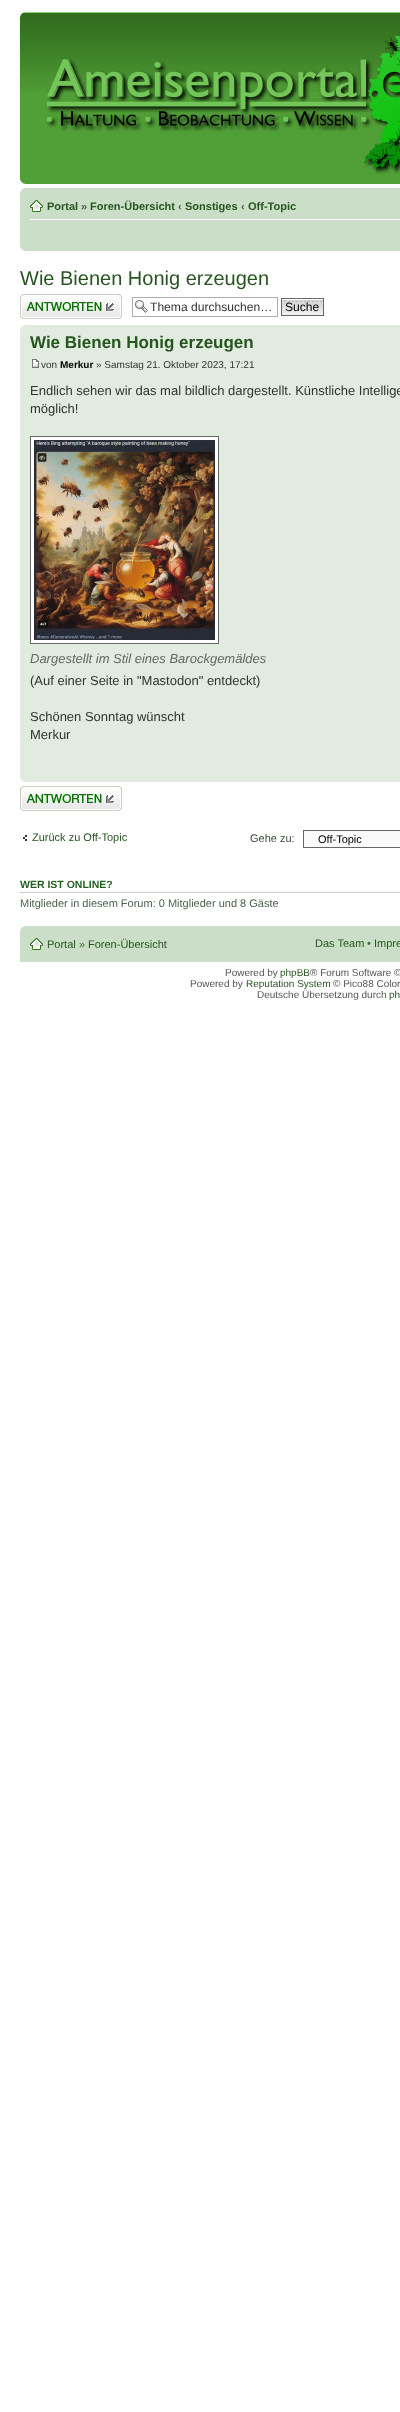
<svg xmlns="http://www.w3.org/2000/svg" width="400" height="2412">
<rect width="100%" height="100%" fill="#fff"/>
<rect x="20" y="92" width="380" height="92" fill="#519f37"/>
<image x="20" y="12" width="380" height="80" href="media/1.png"/>
<image x="20" y="12" width="5" height="5" href="media/2.png"/>
<image x="46" y="35" width="354" height="140" href="media/3.png"/>
<image x="20" y="179" width="5" height="5" href="media/4.png"/>
<rect x="20" y="188" width="380" height="63" fill="#cbdec8"/>
<image x="20" y="188" width="5" height="5" href="media/5.png"/>
<rect x="30" y="219" width="370" height="1" fill="#fff"/>
<image x="30" y="200" width="13" height="12" href="media/6.png"/>
<text x="47" y="210" style="font-family:Liberation Sans;font-size:11px;font-weight:bold;fill:#275520">Portal</text>
<text x="81" y="210" style="font-family:Liberation Sans;font-size:11px;font-weight:bold;fill:#4c624d">»</text>
<text x="90" y="210" style="font-family:Liberation Sans;font-size:11px;font-weight:bold;fill:#275520">Foren-Übersicht</text>
<text x="178" y="210" style="font-family:Liberation Sans;font-size:11px;font-weight:bold;fill:#4c624d">‹</text>
<text x="185" y="210" style="font-family:Liberation Sans;font-size:11px;font-weight:bold;fill:#275520">Sonstiges</text>
<text x="241" y="210" style="font-family:Liberation Sans;font-size:11px;font-weight:bold;fill:#4c624d">‹</text>
<text x="248" y="210" style="font-family:Liberation Sans;font-size:11px;font-weight:bold;fill:#275520">Off-Topic</text>
<image x="20" y="246" width="5" height="5" href="media/7.png"/>
<text x="20" y="285" style="font-family:Liberation Sans;font-size:20px;fill:#275520">Wie Bienen Honig erzeugen</text>
<image x="20" y="294" width="102" height="25" href="media/8.png"/>
<image x="135" y="300" width="13" height="13" href="media/9.png"/>
<rect x="132.5" y="297.5" width="145" height="19" fill="none" stroke="#a9b1a9"/>
<text x="150" y="311" style="font-family:Liberation Sans;font-size:12.1px;fill:#333">Thema durchsuchen…</text>
<image x="282" y="299" width="41" height="16" href="media/10.png"/>
<rect x="281.5" y="298.5" width="42" height="17" fill="none" stroke="#666"/>
<text x="285" y="311" style="font-family:Liberation Sans;font-size:12.1px;fill:#000">Suche</text>
<rect x="20" y="325" width="380" height="457" fill="#e1ebdf"/>
<image x="20" y="325" width="5" height="5" href="media/11.png"/>
<text x="30" y="348" style="font-family:Liberation Sans;font-size:17px;font-weight:bold;fill:#275520">Wie Bienen Honig erzeugen</text>
<image x="32" y="359" width="7" height="9" href="media/12.png"/>
<text x="41" y="368" style="font-family:Liberation Sans;font-size:10px;fill:#333">von</text>
<text x="60" y="368" style="font-family:Liberation Sans;font-size:10px;font-weight:bold;fill:#000">Merkur</text>
<text x="96" y="368" style="font-family:Liberation Sans;font-size:10px;fill:#333">» Samstag 21. Oktober 2023, 17:21</text>
<text x="30" y="395" style="font-family:Liberation Sans;font-size:13px;fill:#333">Endlich sehen wir das mal bildlich dargestellt. Künstliche Intellige</text>
<text x="30" y="413" style="font-family:Liberation Sans;font-size:13px;fill:#333">möglich!</text>
<rect x="30.5" y="436.5" width="188" height="207" fill="#fff" stroke="#666"/>
<image x="34" y="440" width="181" height="200" href="media/13.png"/>
<text x="30" y="663" style="font-family:Liberation Sans;font-size:13px;font-style:italic;fill:#666">Dargestellt im Stil eines Barockgemäldes</text>
<text x="30" y="685" style="font-family:Liberation Sans;font-size:13px;fill:#333">(Auf einer Seite in "Mastodon" entdeckt)</text>
<text x="30" y="721" style="font-family:Liberation Sans;font-size:13px;fill:#333">Schönen Sonntag wünscht</text>
<text x="30" y="739" style="font-family:Liberation Sans;font-size:13px;fill:#333">Merkur</text>
<image x="20" y="777" width="5" height="5" href="media/14.png"/>
<image x="20" y="786" width="102" height="25" href="media/8.png"/>
<image x="23" y="835" width="4" height="6" href="media/15.png"/>
<text x="32" y="841" style="font-family:Liberation Sans;font-size:11px;fill:#275520">Zurück zu Off-Topic</text>
<text x="250" y="842" style="font-family:Liberation Sans;font-size:11px;fill:#3a4a3a">Gehe zu:</text>
<rect x="303.5" y="830.5" width="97" height="17" fill="#fafafa" stroke="#666"/>
<text x="318" y="843" style="font-family:Liberation Sans;font-size:11px;fill:#000">Off-Topic</text>
<rect x="20" y="892" width="380" height="1" fill="#ccc"/>
<text x="20" y="888" style="font-family:Liberation Sans;font-size:10.5px;font-weight:bold;fill:#276024">WER IST ONLINE?</text>
<text x="20" y="907" style="font-family:Liberation Sans;font-size:11px;fill:#4c624d">Mitglieder in diesem Forum: 0 Mitglieder und 8 Gäste</text>
<rect x="20" y="926" width="380" height="36" fill="#cbdec8"/>
<image x="20" y="926" width="5" height="5" href="media/5.png"/>
<image x="30" y="938" width="13" height="12" href="media/6.png"/>
<text x="47" y="948" style="font-family:Liberation Sans;font-size:11px;fill:#275520">Portal</text>
<text x="79" y="948" style="font-family:Liberation Sans;font-size:11px;fill:#4c624d">»</text>
<text x="88" y="948" style="font-family:Liberation Sans;font-size:11px;fill:#275520">Foren-Übersicht</text>
<text x="315" y="947" style="font-family:Liberation Sans;font-size:11px;fill:#275520">Das Team</text>
<text x="367" y="947" style="font-family:Liberation Sans;font-size:11px;fill:#4c624d">•</text>
<text x="374" y="947" style="font-family:Liberation Sans;font-size:11px;fill:#275520">Impre</text>
<text x="225" y="976" style="font-family:Liberation Sans;font-size:10px;fill:#555">Powered by</text>
<text x="280" y="976" style="font-family:Liberation Sans;font-size:10px;fill:#275520">phpBB</text>
<text x="310" y="976" style="font-family:Liberation Sans;font-size:10px;fill:#555">® Forum Software ©</text>
<text x="190" y="987" style="font-family:Liberation Sans;font-size:10px;fill:#555">Powered by</text>
<text x="246" y="987" style="font-family:Liberation Sans;font-size:10px;fill:#275520">Reputation System</text>
<text x="333" y="987" style="font-family:Liberation Sans;font-size:10px;fill:#555">© Pico88 Color</text>
<text x="257" y="998" style="font-family:Liberation Sans;font-size:10px;fill:#555">Deutsche Übersetzung durch</text>
<text x="389" y="998" style="font-family:Liberation Sans;font-size:10px;fill:#275520">ph</text>
</svg>
